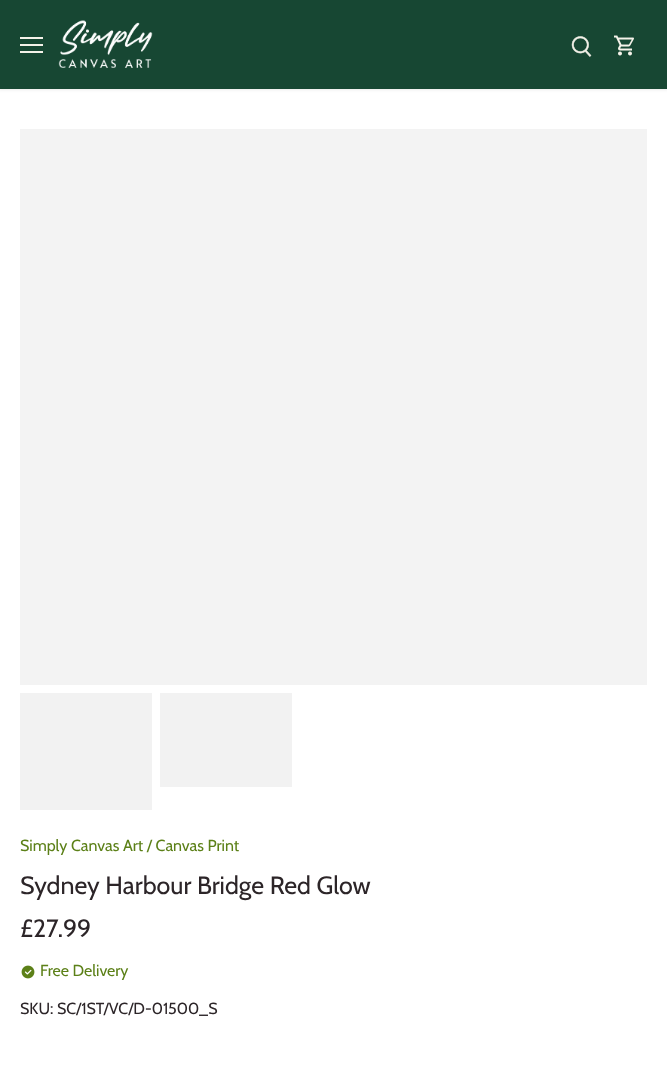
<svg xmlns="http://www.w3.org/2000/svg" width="667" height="1076">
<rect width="100%" height="100%" fill="#fff"/>
<rect x="-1" y="-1" width="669" height="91" fill="#00000014" filter="blur(1.5px)"/>
<rect width="667" height="89" fill="#174733"/>
<rect x="20" y="37" width="23" height="2" fill="#f4f2e9"/>
<rect x="20" y="44" width="23" height="2" fill="#f4f2e9"/>
<rect x="20" y="51" width="23" height="2" fill="#f4f2e9"/>
<image x="58" y="20" width="95" height="48" href="media/1.png"/>
<image x="571" y="36" width="21" height="21" href="media/2.png"/>
<image x="614" y="35" width="20" height="21" href="media/3.png"/>
<rect x="20" y="129" width="627" height="556" fill="#f3f3f3"/>
<rect x="20" y="693" width="132" height="117" fill="#f2f2f2"/>
<rect x="160" y="693" width="132" height="94" fill="#f2f2f2"/>
<text x="20" y="851" style="font-family:Cabin;font-size:16px;fill:#5c8018">Simply Canvas Art / Canvas Print</text>
<text x="20" y="894" style="font-family:Cabin;font-size:25px;fill:#2c2528">Sydney Harbour Bridge Red Glow</text>
<text x="20" y="937" style="font-family:Cabin;font-size:25px;fill:#2c2528">£27.99</text>
<image x="21" y="965" width="14" height="14" href="media/4.png"/>
<text x="40" y="976" style="font-family:Cabin;font-size:16px;fill:#5c8018">Free Delivery</text>
<text x="20" y="1014" style="font-family:Cabin;font-size:16px;fill:#2c2528">SKU: SC/1ST/VC/D-01500_S</text>
</svg>
